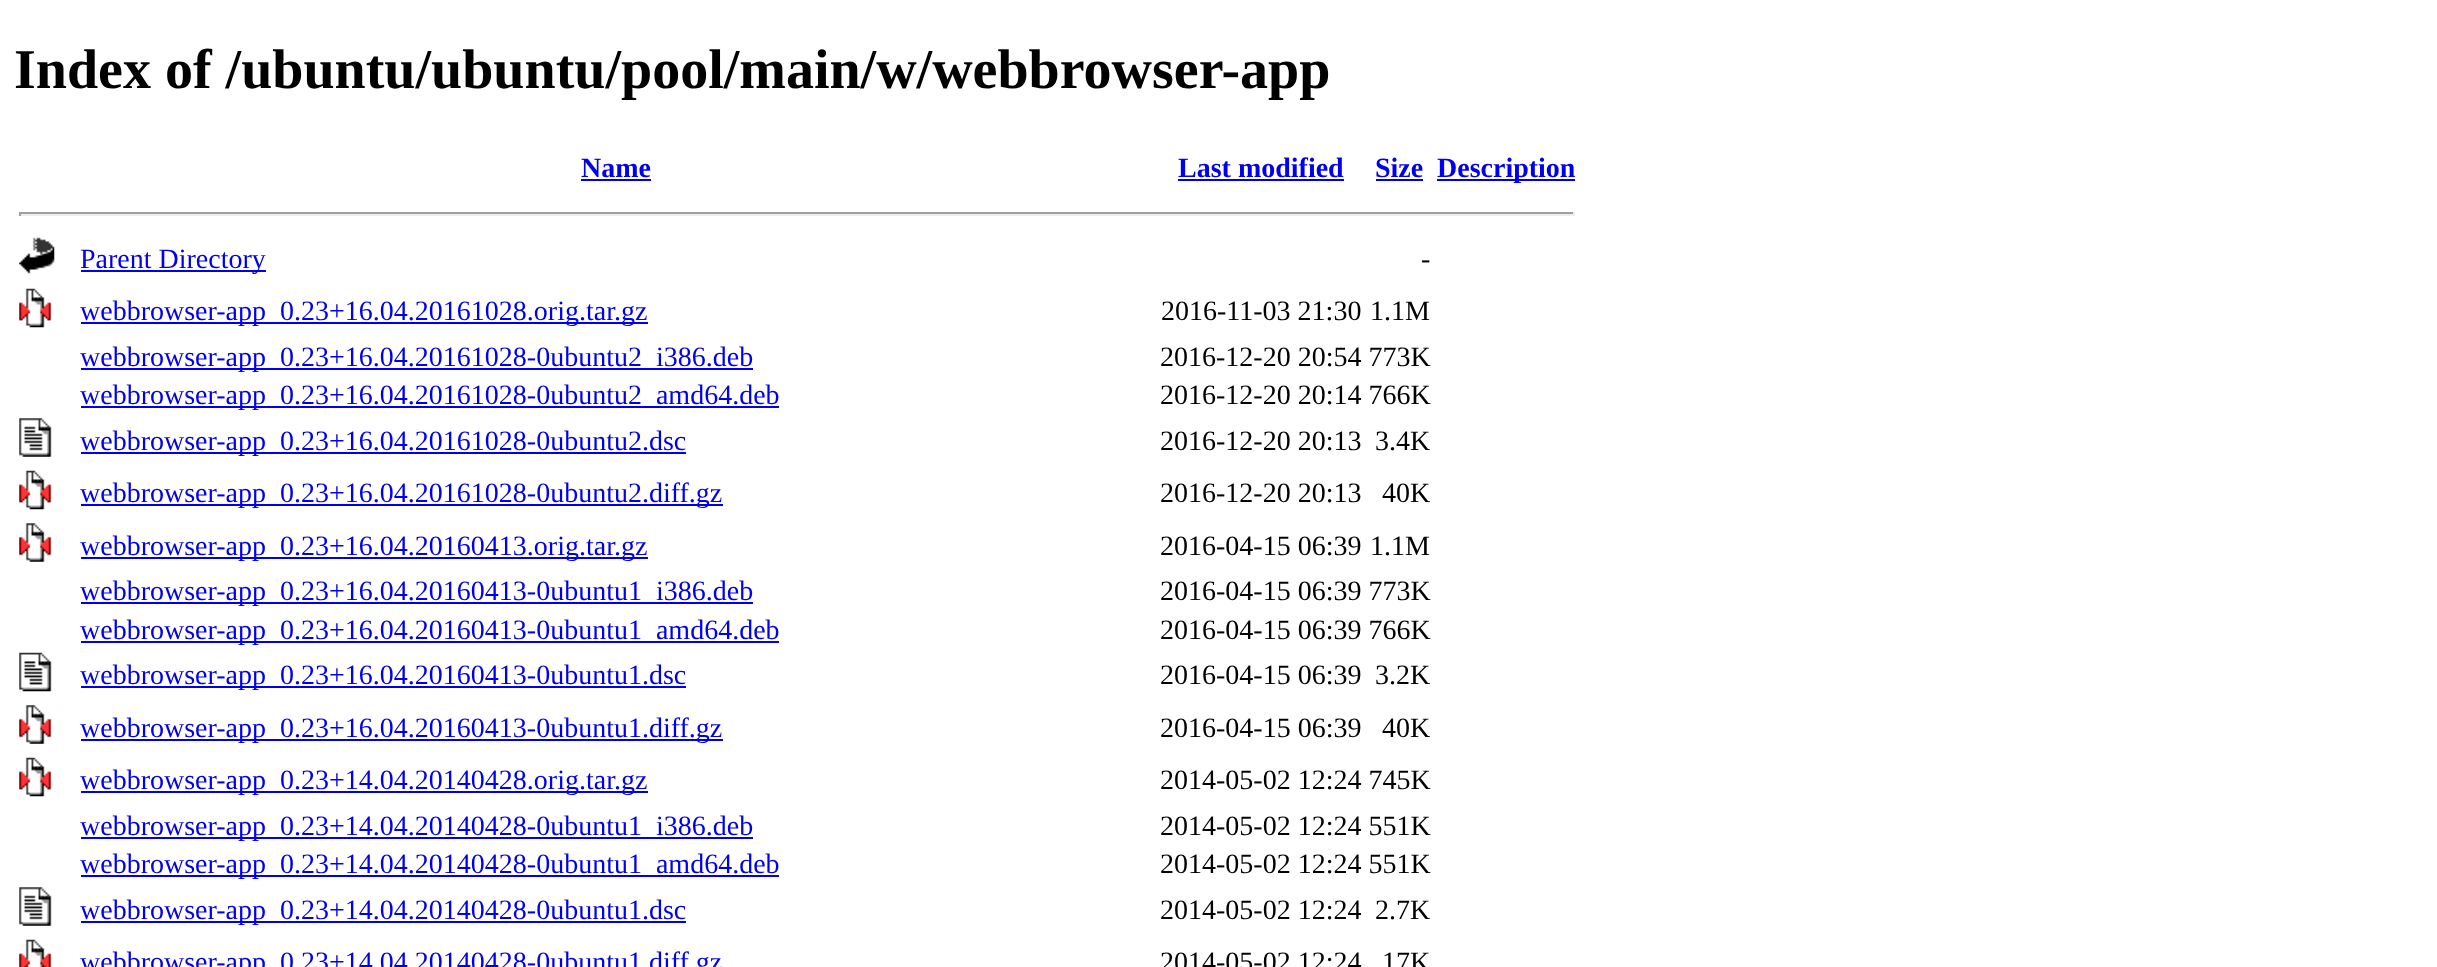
<svg xmlns="http://www.w3.org/2000/svg" width="2437" height="967">
<rect width="100%" height="100%" fill="#fff"/>
<text x="14" y="88" style="font-family:Liberation Serif;font-size:56px;font-weight:bold;fill:#000">Index of /ubuntu/ubuntu/pool/main/w/webbrowser-app</text>
<text x="581" y="177" style="font-family:Liberation Serif;font-size:28px;font-weight:bold;fill:#00e">Name</text>
<rect x="581" y="179" width="70" height="2" fill="#00e"/>
<text x="1178" y="177" style="font-family:Liberation Serif;font-size:28px;font-weight:bold;fill:#00e">Last modified</text>
<rect x="1178" y="179" width="166" height="2" fill="#00e"/>
<text x="1375" y="177" style="font-family:Liberation Serif;font-size:28px;font-weight:bold;fill:#00e">Size</text>
<rect x="1376" y="179" width="47" height="2" fill="#00e"/>
<rect x="1437" y="179" width="138" height="2" fill="#00e"/>
<text x="1437" y="177" style="font-family:Liberation Serif;font-size:28px;font-weight:bold;fill:#00e">Description</text>
<rect x="19" y="212" width="1556" height="2" fill="#9f9f9f"/>
<rect x="1573" y="212" width="2" height="4" fill="#eee"/>
<rect x="19" y="214" width="1556" height="2" fill="#eee"/>
<rect x="19" y="212" width="2" height="4" fill="#9f9f9f"/>
<image x="19" y="237" width="36" height="37" href="media/1.png"/>
<rect x="81" y="270" width="185" height="2" fill="#00e"/>
<text x="80" y="268" style="font-family:Liberation Serif;font-size:28px;fill:#00e">Parent Directory</text>
<text x="1421" y="268" style="font-family:Liberation Serif;font-size:28px;fill:#000">-</text>
<image x="19" y="288" width="33" height="40" href="media/2.png"/>
<rect x="81" y="322" width="567" height="2" fill="#00e"/>
<text x="80" y="320" style="font-family:Liberation Serif;font-size:28px;fill:#00e">webbrowser-app_0.23+16.04.20161028.orig.tar.gz</text>
<text x="1161" y="320" style="font-family:Liberation Serif;font-size:28px;fill:#000">2016-11-03 21:30</text>
<text x="1370" y="320" style="font-family:Liberation Serif;font-size:28px;fill:#000">1.1M</text>
<rect x="81" y="368" width="672" height="2" fill="#00e"/>
<text x="80" y="366" style="font-family:Liberation Serif;font-size:28px;fill:#00e">webbrowser-app_0.23+16.04.20161028-0ubuntu2_i386.deb</text>
<text x="1160" y="366" style="font-family:Liberation Serif;font-size:28px;fill:#000">2016-12-20 20:54 773K</text>
<rect x="81" y="406" width="698" height="2" fill="#00e"/>
<text x="80" y="404" style="font-family:Liberation Serif;font-size:28px;fill:#00e">webbrowser-app_0.23+16.04.20161028-0ubuntu2_amd64.deb</text>
<text x="1160" y="404" style="font-family:Liberation Serif;font-size:28px;fill:#000">2016-12-20 20:14 766K</text>
<image x="19" y="418" width="33" height="39" href="media/3.png"/>
<rect x="81" y="452" width="605" height="2" fill="#00e"/>
<text x="80" y="450" style="font-family:Liberation Serif;font-size:28px;fill:#00e">webbrowser-app_0.23+16.04.20161028-0ubuntu2.dsc</text>
<text x="1160" y="450" style="font-family:Liberation Serif;font-size:28px;fill:#000">2016-12-20 20:13</text>
<text x="1375" y="450" style="font-family:Liberation Serif;font-size:28px;fill:#000">3.4K</text>
<image x="19" y="470" width="33" height="40" href="media/2.png"/>
<rect x="81" y="504" width="642" height="2" fill="#00e"/>
<text x="80" y="502" style="font-family:Liberation Serif;font-size:28px;fill:#00e">webbrowser-app_0.23+16.04.20161028-0ubuntu2.diff.gz</text>
<text x="1160" y="502" style="font-family:Liberation Serif;font-size:28px;fill:#000">2016-12-20 20:13</text>
<text x="1382" y="502" style="font-family:Liberation Serif;font-size:28px;fill:#000">40K</text>
<image x="19" y="523" width="33" height="39" href="media/4.png"/>
<rect x="81" y="557" width="567" height="2" fill="#00e"/>
<text x="80" y="555" style="font-family:Liberation Serif;font-size:28px;fill:#00e">webbrowser-app_0.23+16.04.20160413.orig.tar.gz</text>
<text x="1160" y="555" style="font-family:Liberation Serif;font-size:28px;fill:#000">2016-04-15 06:39</text>
<text x="1370" y="555" style="font-family:Liberation Serif;font-size:28px;fill:#000">1.1M</text>
<rect x="81" y="602" width="672" height="2" fill="#00e"/>
<text x="80" y="600" style="font-family:Liberation Serif;font-size:28px;fill:#00e">webbrowser-app_0.23+16.04.20160413-0ubuntu1_i386.deb</text>
<text x="1160" y="600" style="font-family:Liberation Serif;font-size:28px;fill:#000">2016-04-15 06:39 773K</text>
<rect x="81" y="641" width="698" height="2" fill="#00e"/>
<text x="80" y="639" style="font-family:Liberation Serif;font-size:28px;fill:#00e">webbrowser-app_0.23+16.04.20160413-0ubuntu1_amd64.deb</text>
<text x="1160" y="639" style="font-family:Liberation Serif;font-size:28px;fill:#000">2016-04-15 06:39 766K</text>
<image x="19" y="652" width="33" height="40" href="media/5.png"/>
<rect x="81" y="686" width="605" height="2" fill="#00e"/>
<text x="80" y="684" style="font-family:Liberation Serif;font-size:28px;fill:#00e">webbrowser-app_0.23+16.04.20160413-0ubuntu1.dsc</text>
<text x="1160" y="684" style="font-family:Liberation Serif;font-size:28px;fill:#000">2016-04-15 06:39</text>
<text x="1375" y="684" style="font-family:Liberation Serif;font-size:28px;fill:#000">3.2K</text>
<image x="19" y="705" width="33" height="39" href="media/4.png"/>
<rect x="81" y="739" width="642" height="2" fill="#00e"/>
<text x="80" y="737" style="font-family:Liberation Serif;font-size:28px;fill:#00e">webbrowser-app_0.23+16.04.20160413-0ubuntu1.diff.gz</text>
<text x="1160" y="737" style="font-family:Liberation Serif;font-size:28px;fill:#000">2016-04-15 06:39</text>
<text x="1382" y="737" style="font-family:Liberation Serif;font-size:28px;fill:#000">40K</text>
<image x="19" y="757" width="33" height="40" href="media/2.png"/>
<rect x="81" y="791" width="567" height="2" fill="#00e"/>
<text x="80" y="789" style="font-family:Liberation Serif;font-size:28px;fill:#00e">webbrowser-app_0.23+14.04.20140428.orig.tar.gz</text>
<text x="1160" y="789" style="font-family:Liberation Serif;font-size:28px;fill:#000">2014-05-02 12:24 745K</text>
<rect x="81" y="837" width="672" height="2" fill="#00e"/>
<text x="80" y="835" style="font-family:Liberation Serif;font-size:28px;fill:#00e">webbrowser-app_0.23+14.04.20140428-0ubuntu1_i386.deb</text>
<text x="1160" y="835" style="font-family:Liberation Serif;font-size:28px;fill:#000">2014-05-02 12:24 551K</text>
<rect x="81" y="875" width="698" height="2" fill="#00e"/>
<text x="80" y="873" style="font-family:Liberation Serif;font-size:28px;fill:#00e">webbrowser-app_0.23+14.04.20140428-0ubuntu1_amd64.deb</text>
<text x="1160" y="873" style="font-family:Liberation Serif;font-size:28px;fill:#000">2014-05-02 12:24 551K</text>
<image x="19" y="887" width="33" height="39" href="media/3.png"/>
<rect x="81" y="921" width="605" height="2" fill="#00e"/>
<text x="80" y="919" style="font-family:Liberation Serif;font-size:28px;fill:#00e">webbrowser-app_0.23+14.04.20140428-0ubuntu1.dsc</text>
<text x="1160" y="919" style="font-family:Liberation Serif;font-size:28px;fill:#000">2014-05-02 12:24</text>
<text x="1375" y="919" style="font-family:Liberation Serif;font-size:28px;fill:#000">2.7K</text>
<image x="19" y="939" width="33" height="28" href="media/6.png"/>
<text x="80" y="971" style="font-family:Liberation Serif;font-size:28px;fill:#00e">webbrowser-app_0.23+14.04.20140428-0ubuntu1.diff.gz</text>
<text x="1160" y="971" style="font-family:Liberation Serif;font-size:28px;fill:#000">2014-05-02 12:24</text>
<text x="1382" y="971" style="font-family:Liberation Serif;font-size:28px;fill:#000">17K</text>
</svg>
